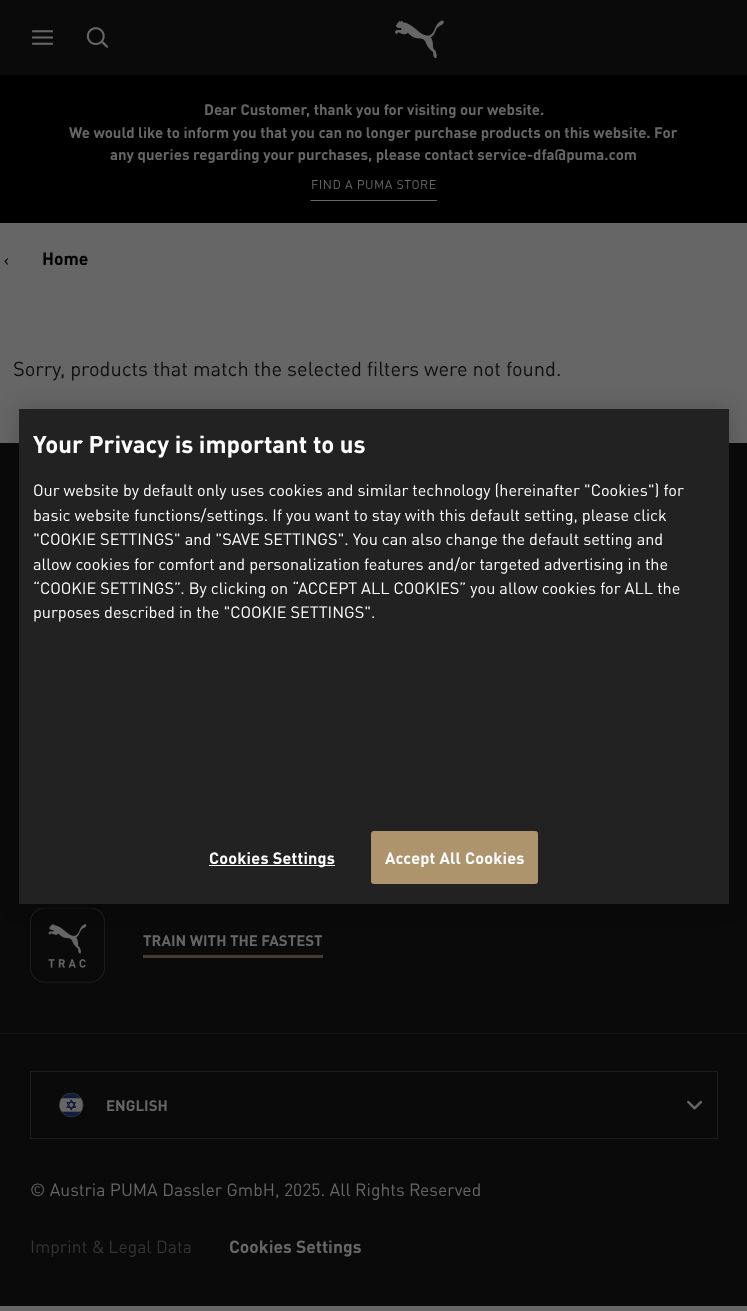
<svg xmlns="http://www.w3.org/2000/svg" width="747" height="1311">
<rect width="100%" height="100%" fill="#666"/>
<rect width="747" height="75" fill="#0a0a0a"/>
<image x="32" y="30" width="21" height="15" href="media/1.png"/>
<image x="86" y="27" width="23" height="21" href="media/2.png"/>
<image x="395" y="20" width="49" height="39" href="media/3.png"/>
<rect y="75" width="747" height="148" fill="#000"/>
<text x="204" y="115" style="font-family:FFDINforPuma;font-size:15px;font-weight:bold;fill:#666">Dear Customer, thank you for visiting our website.</text>
<text x="69" y="138" style="font-family:FFDINforPuma;font-size:15px;font-weight:bold;fill:#666">We would like to inform you that you can no longer purchase products on this website. For</text>
<text x="110" y="160" style="font-family:FFDINforPuma;font-size:15px;font-weight:bold;fill:#666">any queries regarding your purchases, please contact service-dfa@puma.com</text>
<path d="M438 201h-128l1-1h125z" fill="#666"/>
<text x="311" y="189" style="font-family:FFDINforPuma;font-size:12.5px;letter-spacing:0.5px;fill:#666">FIND A PUMA STORE</text>
<image x="4" y="258" width="4" height="7" href="media/4.png"/>
<text x="42" y="265" style="font-family:FFDINforPuma;font-size:17.5px;font-weight:bold;fill:#000">Home</text>
<text x="13" y="376" style="font-family:FFDINforPuma;font-size:20px;fill:#0e0e0e">Sorry, products that match the selected filters were not found.</text>
<rect y="443" width="747" height="590" fill="#0a0a0a"/>
<image x="30" y="908" width="75" height="75" href="media/5.png"/>
<text x="143" y="946" style="font-family:FFDINforPuma;font-size:15px;font-weight:bold;fill:#666">TRAIN WITH THE FASTEST</text>
<rect x="143" y="955" width="180" height="3" fill="#463b2c"/>
<rect y="1034" width="747" height="272" fill="#0a0a0a"/>
<rect y="1033" width="747" height="1" fill="#121212"/>
<rect x="30.5" y="1071.5" width="687" height="67" fill="none" stroke="#1c1c1c"/>
<image x="59" y="1093" width="25" height="25" href="media/6.png"/>
<text x="106" y="1111" style="font-family:FFDINforPuma;font-size:15px;font-weight:bold;fill:#666">ENGLISH</text>
<image x="687" y="1100" width="15" height="10" href="media/7.png"/>
<text x="30" y="1196" style="font-family:FFDINforPuma;font-size:17.5px;fill:#666">© Austria PUMA Dassler GmbH, 2025. All Rights Reserved</text>
<text x="30" y="1253" style="font-family:FFDINforPuma;font-size:17.5px;fill:#343434">Imprint &amp; Legal Data</text>
<text x="229" y="1253" style="font-family:FFDINforPuma;font-size:17.5px;font-weight:bold;fill:#666">Cookies Settings</text>
<rect x="19" y="409" width="710" height="495" fill="#00000033" filter="blur(11px)"/>
<rect x="19" y="409" width="710" height="495" fill="#222"/>
<text x="33" y="453" style="font-family:FFDINforPuma;font-size:24px;font-weight:bold;fill:#fff">Your Privacy is important to us</text>
<text x="33" y="496" style="font-family:FFDINforPuma;font-size:16.25px;fill:#fff">Our website by default only uses cookies and similar technology (hereinafter "Cookies") for</text>
<text x="33" y="521" style="font-family:FFDINforPuma;font-size:16.25px;fill:#fff">basic website functions/settings. If you want to stay with this default setting, please click</text>
<text x="33" y="545" style="font-family:FFDINforPuma;font-size:16.25px;fill:#fff">"COOKIE SETTINGS" and "SAVE SETTINGS". You can also change the default setting and</text>
<text x="33" y="570" style="font-family:FFDINforPuma;font-size:16.25px;fill:#fff">allow cookies for comfort and personalization features and/or targeted advertising in the</text>
<text x="33" y="594" style="font-family:FFDINforPuma;font-size:16.25px;fill:#fff">“COOKIE SETTINGS”. By clicking on “ACCEPT ALL COOKIES” you allow cookies for ALL the</text>
<text x="33" y="618" style="font-family:FFDINforPuma;font-size:16.25px;fill:#fff">purposes described in the "COOKIE SETTINGS".</text>
<rect x="209" y="865" width="126" height="1" fill="#fff"/>
<text x="209" y="864" style="font-family:FFDINforPuma;font-size:16.25px;font-weight:bold;letter-spacing:0.2px;fill:#fff">Cookies Settings</text>
<rect x="371.5" y="831.5" width="166" height="52" rx="2" fill="#ae946d" stroke="#ae946d"/>
<text x="385" y="864" style="font-family:FFDINforPuma;font-size:16.25px;font-weight:bold;letter-spacing:0.2px;fill:#fff">Accept All Cookies</text>
</svg>
